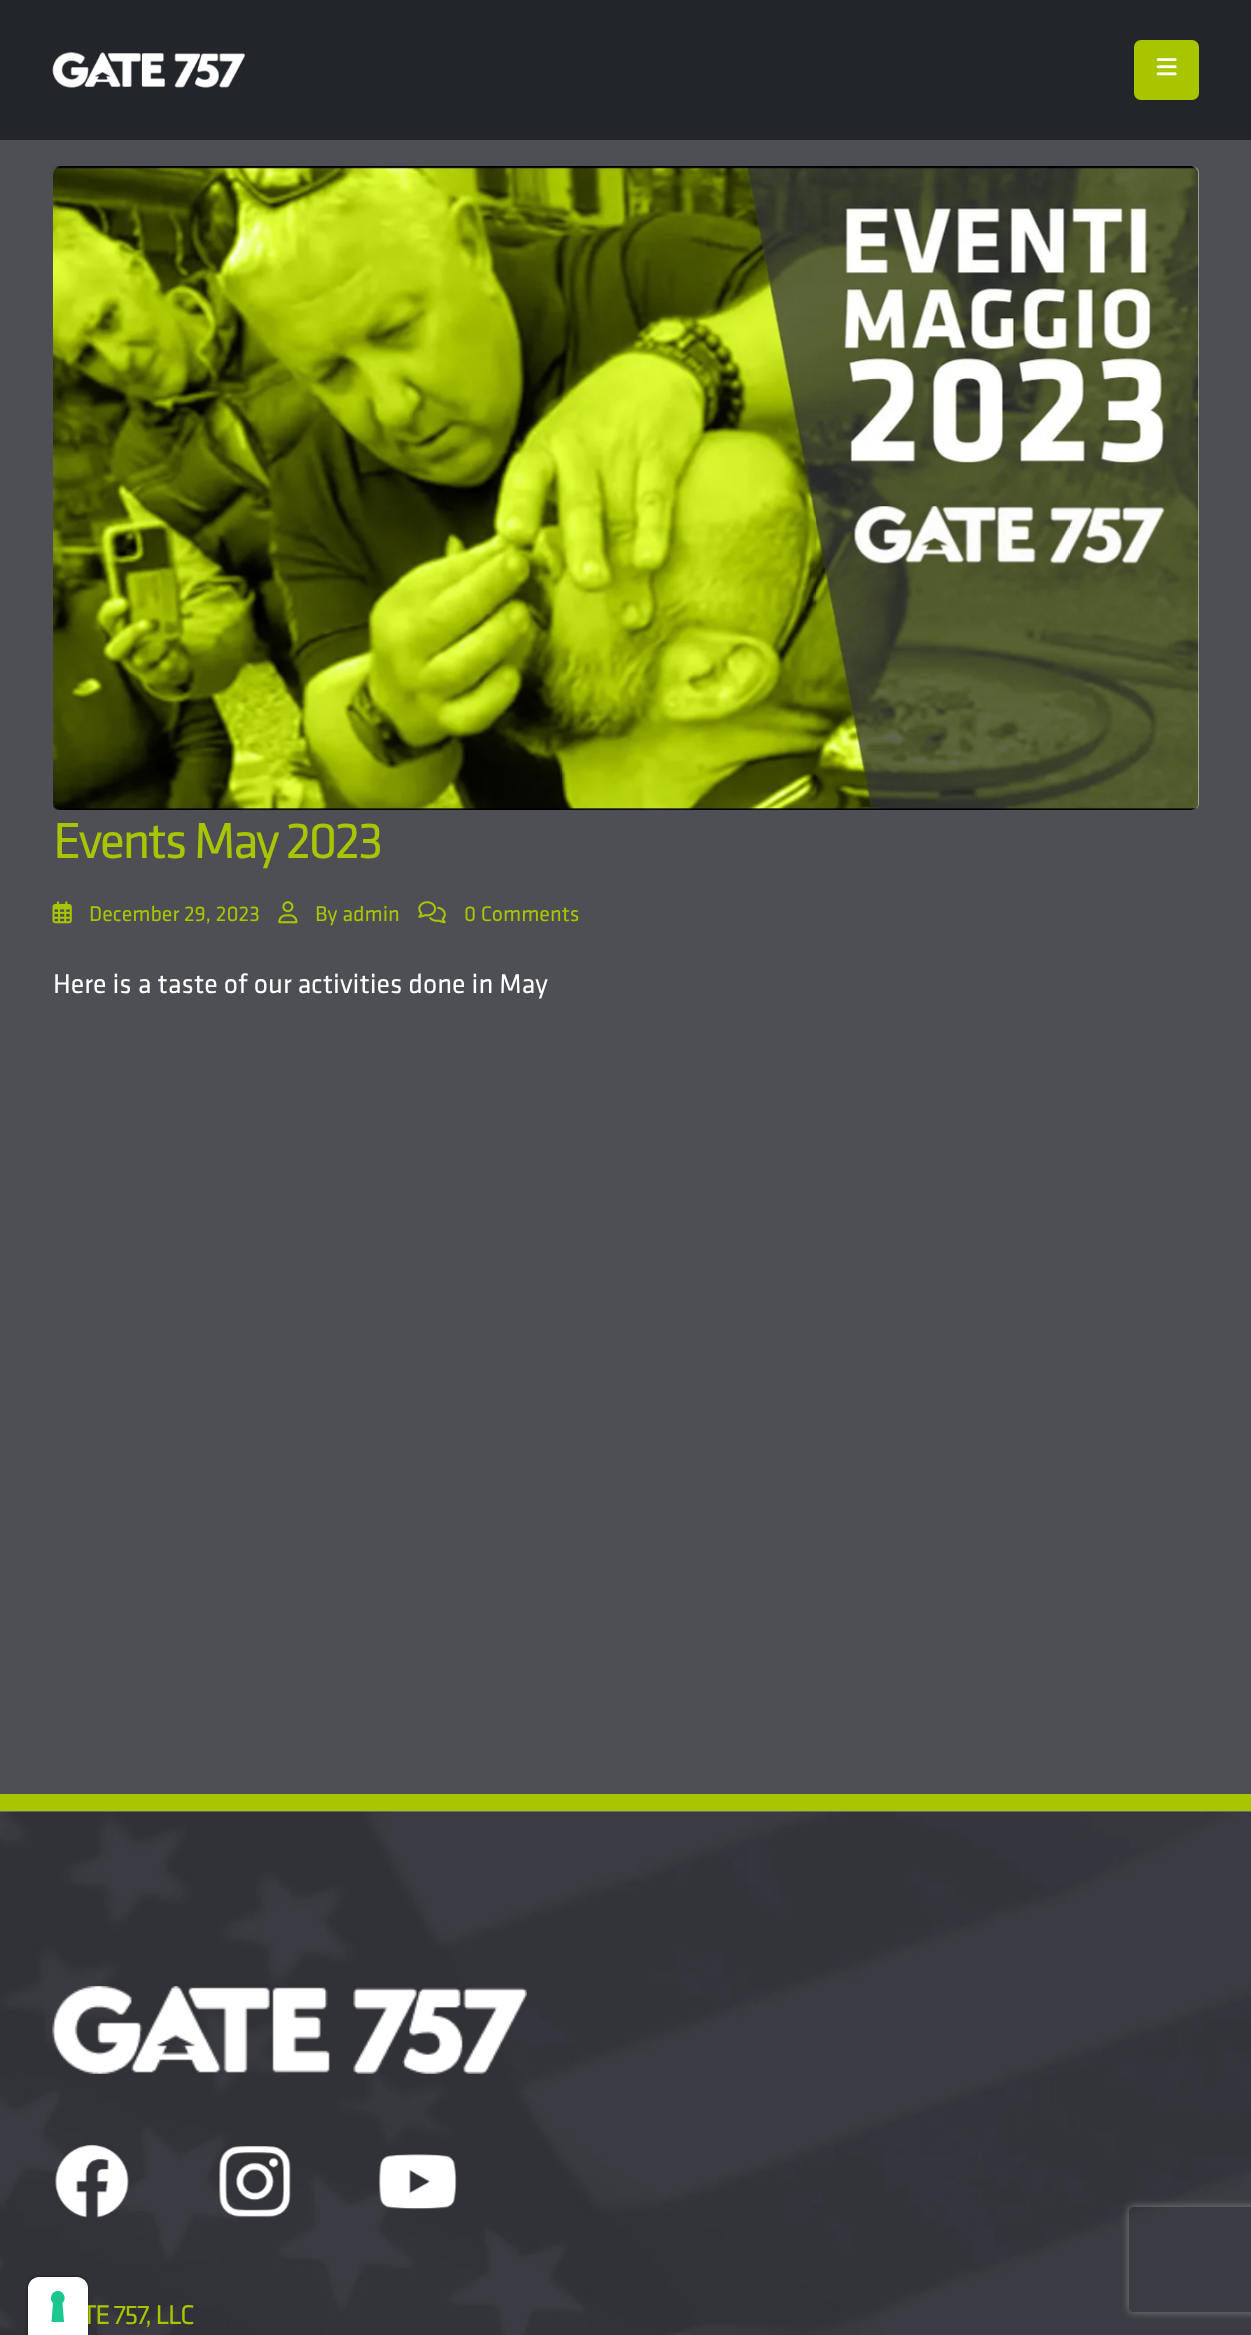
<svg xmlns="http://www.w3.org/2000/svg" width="1251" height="2335">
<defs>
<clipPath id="clip1"><path d="M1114 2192h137v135h-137zm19 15h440c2 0 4 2 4 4v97c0 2-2 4-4 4h-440c-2 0-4-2-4-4v-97c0-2 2-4 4-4z" clip-rule="evenodd"/></clipPath>
</defs>
<rect width="100%" height="100%" fill="#fff"/>
<rect width="1251" height="140" fill="#222529"/>
<image x="52" y="52" width="193" height="36" href="media/1.png"/>
<rect x="1134" y="40" width="65" height="60" rx="7" fill="#a9c500"/>
<image x="1156" y="58" width="21" height="18" href="media/2.png"/>
<rect y="140" width="1251" height="1654" fill="#4e4f54"/>
<rect x="53" y="166" width="1146" height="644" rx="7" fill="#fff"/>
<image x="53" y="166" width="1146" height="644" href="media/3.png"/>
<text x="53" y="858" style="font-family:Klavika;font-size:52.5px;letter-spacing:-2.6px;fill:#a9c500">Events May 2023</text>
<image x="52" y="901" width="20" height="23" href="media/4.png"/>
<text x="89" y="921" style="font-family:Klavika;font-size:22px;fill:#a9c500">December 29, 2023</text>
<image x="278" y="901" width="20" height="23" href="media/5.png"/>
<text x="315" y="921" style="font-family:Klavika;font-size:22px;fill:#a9c500">By admin</text>
<image x="418" y="901" width="28" height="23" href="media/6.png"/>
<text x="464" y="921" style="font-family:Klavika;font-size:22px;fill:#a9c500">0 Comments</text>
<text x="53" y="993" style="font-family:Klavika;font-size:28px;fill:#fff">Here is a taste of our activities done in May</text>
<image x="0" y="1811" width="1251" height="524" href="media/7.png"/>
<rect y="1794" width="1251" height="17" fill="#a9c500"/>
<image x="52" y="1986" width="475" height="88" href="media/8.png"/>
<image x="55" y="2144" width="74" height="74" href="media/9.png"/>
<image x="219" y="2146" width="72" height="72" href="media/10.png"/>
<image x="379" y="2154" width="78" height="56" href="media/11.png"/>
<text x="82" y="2324" style="font-family:Klavika;font-size:28px;letter-spacing:-1.4px;fill:#a9c500">TE 757, LLC</text>
<g clip-path="url(#clip1)">
<rect x="1129" y="2207" width="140" height="105" rx="4" fill="#808080" filter="blur(4.5px)"/>
</g>
<path d="M38 2276h39c6 0 11 5 11 11v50h-61v-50c0-6 5-11 11-11z" fill="none" stroke="#00000026" stroke-width="2"/>
<path d="M39 2277h38c6 0 11 5 11 11v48h-60v-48c0-6 5-11 11-11z" fill="#fff"/>
<path d="M58 2291c6 0 9 8 4.5 12l1.5 19h-12.5l1.5-19c-4.5-4-1.5-12 5-12z" fill="#1cc691" fill-rule="evenodd"/>
</svg>
